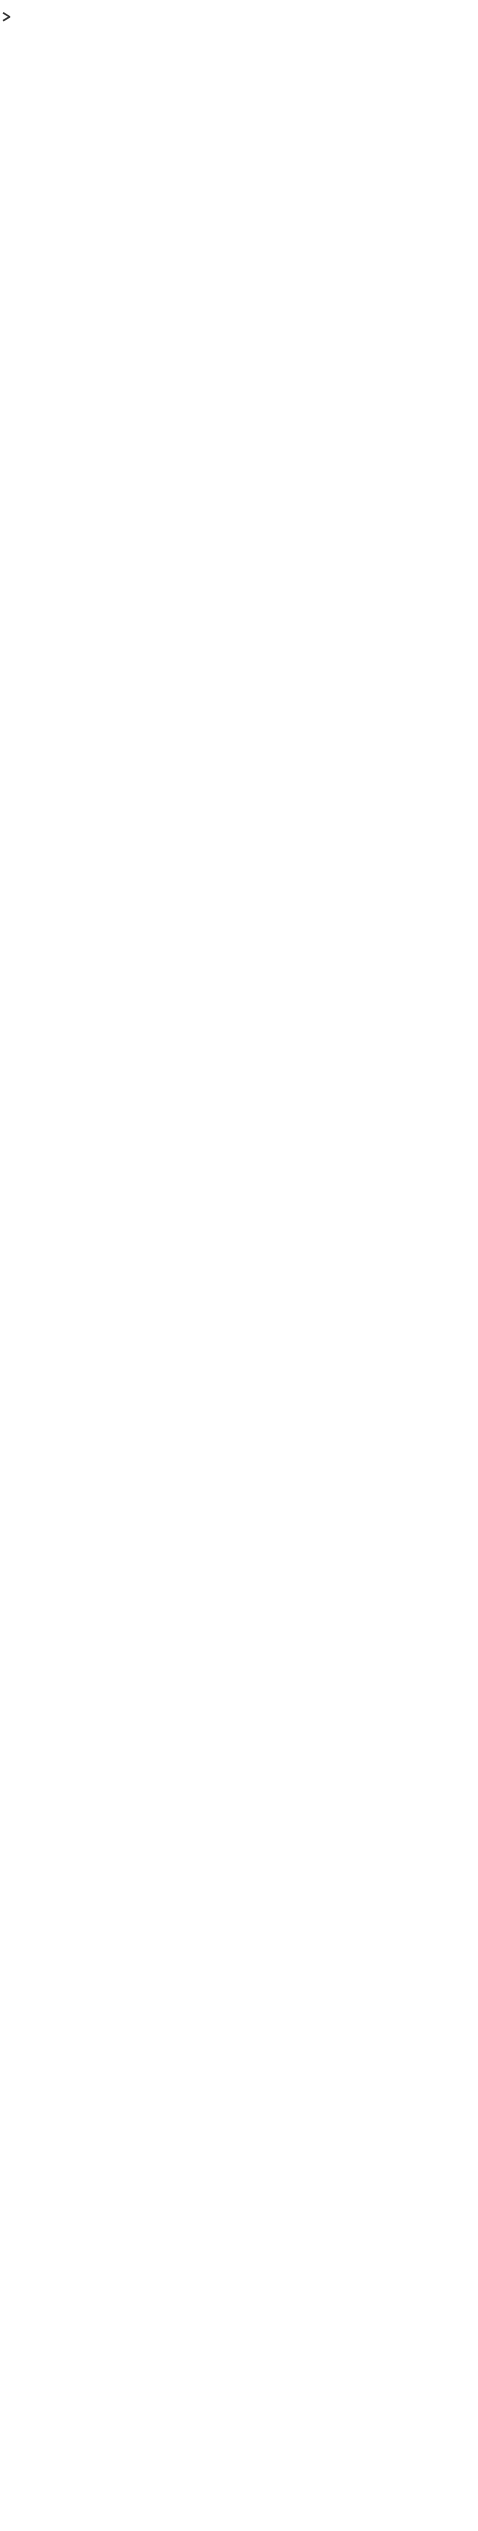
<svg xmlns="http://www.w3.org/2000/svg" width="478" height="2531">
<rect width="100%" height="100%" fill="#fff"/>
<text x="0" y="24" style="font-family:ABeeZee;font-size:21px;fill:#333">&gt;</text>
</svg>
